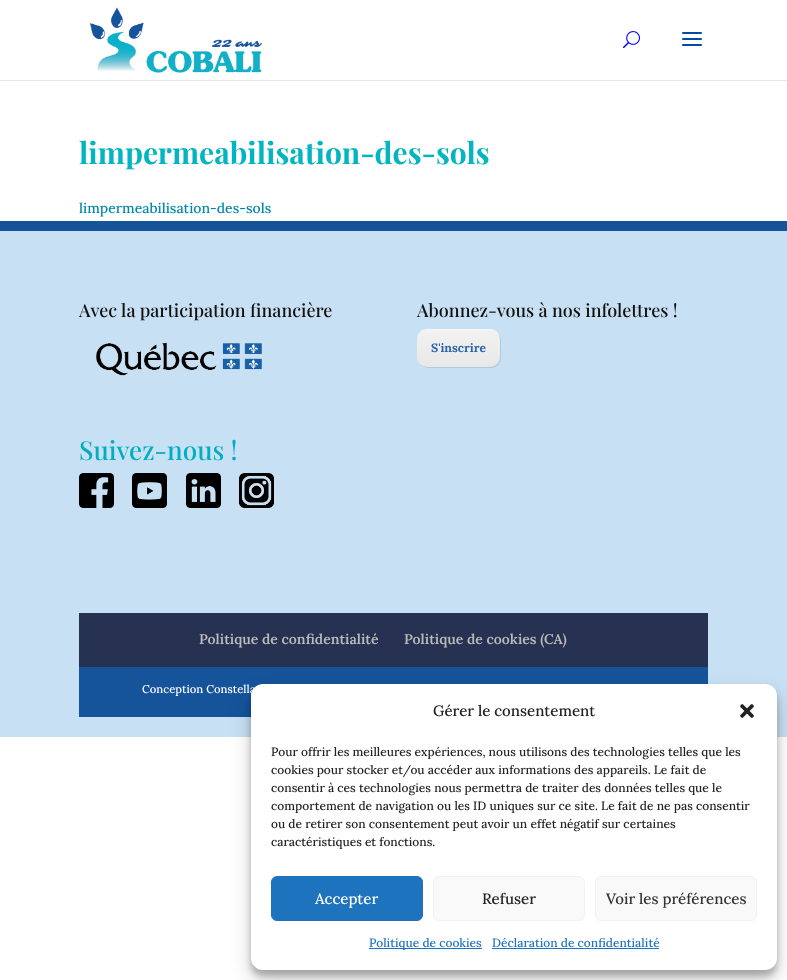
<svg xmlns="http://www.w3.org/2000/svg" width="787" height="980">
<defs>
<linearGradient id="g1" gradientUnits="userSpaceOnUse" x1="459" y1="329" x2="459" y2="367"><stop offset="0" stop-color="#f2f2f2"/><stop offset="1" stop-color="#e8e8e8"/></linearGradient>
</defs>
<rect width="100%" height="100%" fill="#fff"/>
<rect y="80" width="787" height="1" fill="#e6e6e6"/>
<image x="89" y="7" width="173" height="66" href="media/1.png"/>
<image x="623" y="31" width="17" height="18" href="media/2.png"/>
<image x="682" y="32" width="20" height="14" href="media/3.png"/>
<text x="79" y="164" style="font-family:Playfair Display;font-size:30px;font-weight:bold;fill:#03b5c1">limpermeabilisation-des-sols</text>
<text x="79" y="213" style="font-family:Lora;font-size:14px;font-weight:500;fill:#0189a8">limpermeabilisation-des-sols</text>
<rect y="231" width="787" height="506" fill="#c8e0f3"/>
<rect y="221" width="787" height="10" fill="#15549b"/>
<text x="79" y="317" style="font-family:Playfair Display;font-size:18px;font-weight:500;fill:#111">Avec la participation financière</text>
<image x="96" y="342" width="166" height="34" href="media/4.png"/>
<text x="417" y="317" style="font-family:Playfair Display;font-size:18px;font-weight:500;fill:#111">Abonnez-vous à nos infolettres !</text>
<rect x="418" y="330" width="83" height="38" rx="10" fill="#0000001a" filter="blur(0.5px)"/>
<rect x="417" y="329" width="83" height="38" rx="10" fill="url(#g1)"/>
<path d="M427 330h63c6 0 10 4 10 10c0-13-11-11-20-11h-42c-10 0-21-2-21 11c0-6 4-10 10-10z" fill="#ffffff66"/>
<text x="431" y="352" style="font-family:Lora;font-size:12px;font-weight:bold;fill:#2b63a8">S'inscrire</text>
<text x="79" y="460" style="font-family:Playfair Display;font-size:26px;font-weight:500;fill:#00aec1">Suivez-nous !</text>
<image x="79" y="473" width="35" height="35" href="media/5.png"/>
<image x="132" y="473" width="35" height="35" href="media/6.png"/>
<image x="186" y="473" width="35" height="35" href="media/7.png"/>
<image x="239" y="473" width="35" height="35" href="media/8.png"/>
<rect x="79" y="613" width="629" height="54" fill="#273151"/>
<text x="199" y="644" style="font-family:Lora;font-size:14px;font-weight:600;fill:#bbb">Politique de confidentialité</text>
<text x="404" y="644" style="font-family:Lora;font-size:14px;font-weight:600;fill:#bbb">Politique de cookies (CA)</text>
<rect x="79" y="667" width="629" height="50" fill="#15549b"/>
<text x="142" y="693" style="font-family:Lora;font-size:11.25px;font-weight:500;fill:#fff">Conception Constella</text>
<rect x="251" y="690" width="526" height="286" rx="12" fill="#0000003b" filter="blur(3px)"/>
<rect x="251" y="694" width="526" height="286" rx="12" fill="#00000030" filter="blur(10px)"/>
<rect x="251" y="684" width="526" height="286" rx="12" fill="#fff"/>
<text x="433" y="716" style="font-family:Lora;font-size:15px;font-weight:500;fill:#222">Gérer le consentement</text>
<image x="740" y="704" width="14" height="14" href="media/9.png"/>
<text x="271" y="756" style="font-family:Lora;font-size:12px;font-weight:500;fill:#222">Pour offrir les meilleures expériences, nous utilisons des technologies telles que les</text>
<text x="271" y="774" style="font-family:Lora;font-size:12px;font-weight:500;fill:#222">cookies pour stocker et/ou accéder aux informations des appareils. Le fait de</text>
<text x="271" y="792" style="font-family:Lora;font-size:12px;font-weight:500;fill:#222">consentir à ces technologies nous permettra de traiter des données telles que le</text>
<text x="271" y="810" style="font-family:Lora;font-size:12px;font-weight:500;fill:#222">comportement de navigation ou les ID uniques sur ce site. Le fait de ne pas consentir</text>
<text x="271" y="828" style="font-family:Lora;font-size:12px;font-weight:500;fill:#222">ou de retirer son consentement peut avoir un effet négatif sur certaines</text>
<text x="271" y="846" style="font-family:Lora;font-size:12px;font-weight:500;fill:#222">caractéristiques et fonctions.</text>
<rect x="271.5" y="876.5" width="151" height="44" rx="5.5" fill="#1e73be" stroke="#1e73be"/>
<text x="315" y="904" style="font-family:Lora;font-size:15px;font-weight:500;fill:#fff">Accepter</text>
<rect x="433.5" y="876.5" width="151" height="44" rx="5.5" fill="#f9f9f9" stroke="#f2f2f2"/>
<text x="482" y="904" style="font-family:Lora;font-size:15px;font-weight:500;fill:#222">Refuser</text>
<rect x="595.5" y="876.5" width="161" height="44" rx="5.5" fill="#f9f9f9" stroke="#f2f2f2"/>
<text x="606" y="904" style="font-family:Lora;font-size:15px;font-weight:500;fill:#333">Voir les préférences</text>
<rect x="369" y="948" width="113" height="1" fill="#1e73be"/>
<text x="369" y="947" style="font-family:Lora;font-size:12px;font-weight:500;fill:#1e73be">Politique de cookies</text>
<text x="492" y="947" style="font-family:Lora;font-size:12px;font-weight:500;fill:#1e73be">Déclaration de confidentialité</text>
<rect x="492" y="948" width="167" height="1" fill="#1e73be"/>
</svg>
